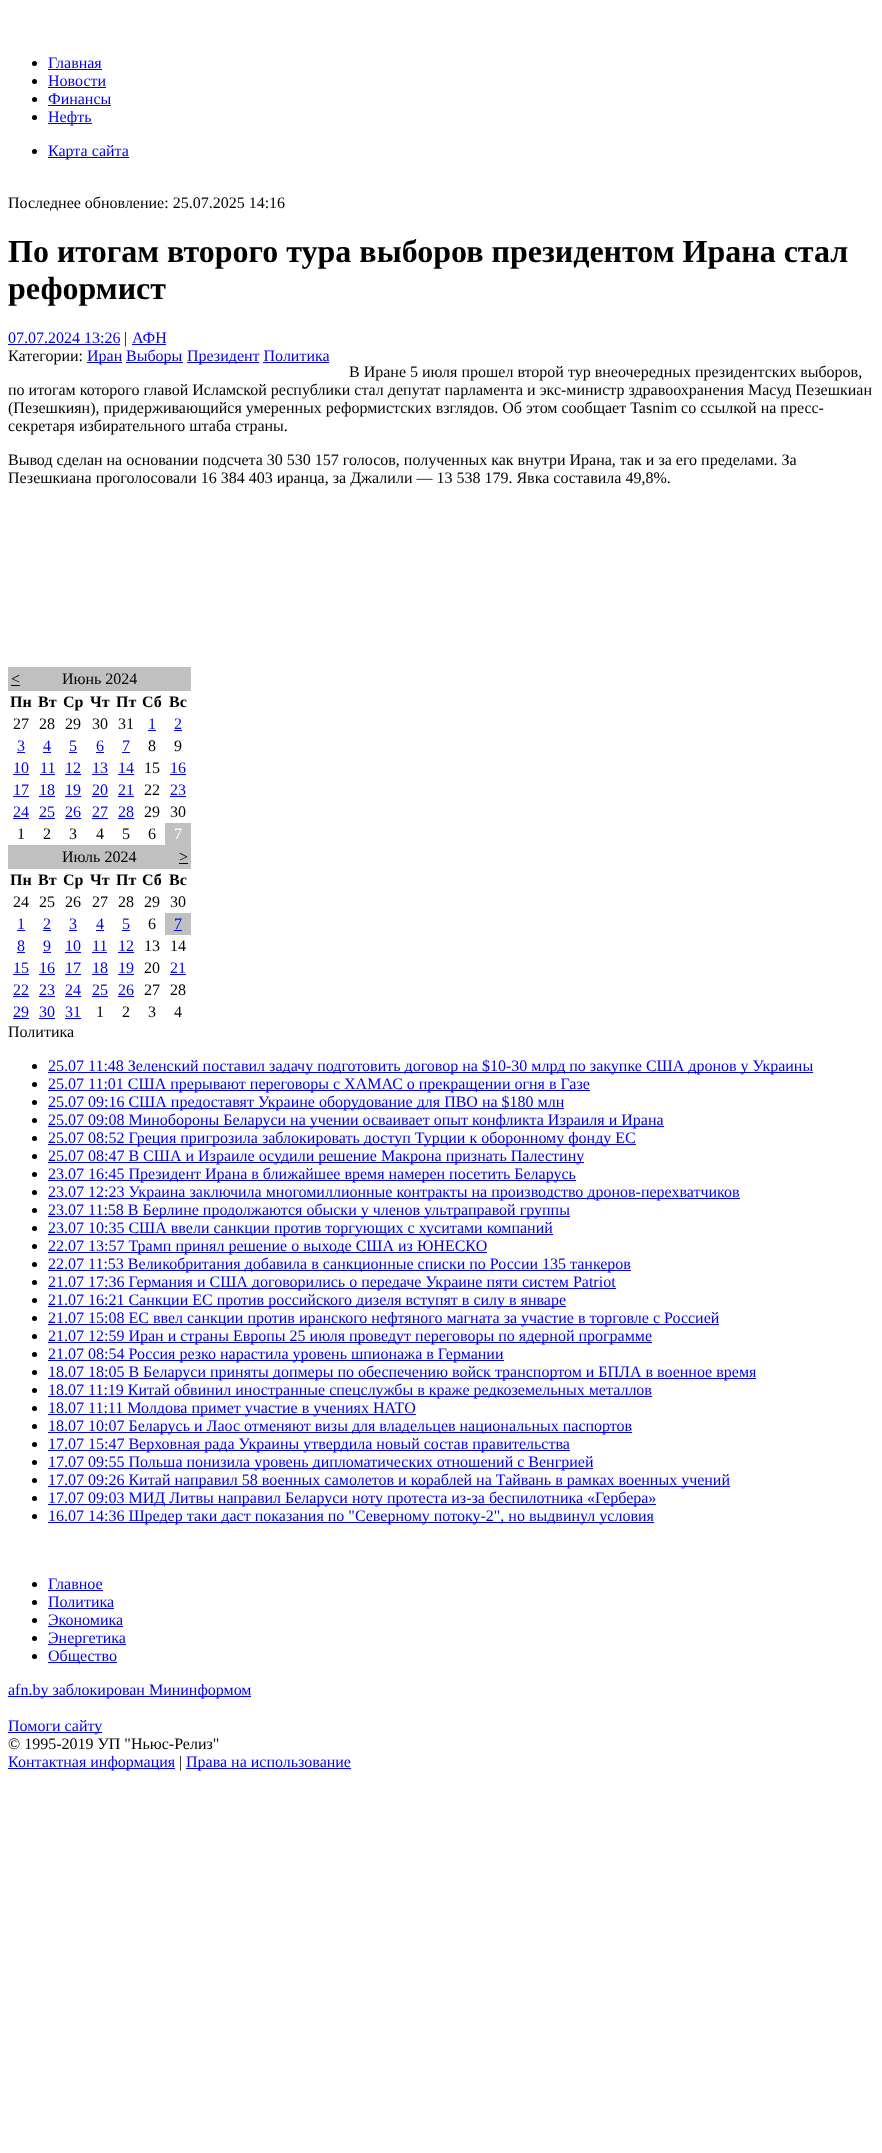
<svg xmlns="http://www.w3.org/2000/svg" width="882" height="2153">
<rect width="100%" height="100%" fill="#fff"/>
<circle cx="34.5" cy="63.5" r="2.5" fill="#000"/>
<text x="48" y="68" style="font-family:Liberation Serif;font-size:16px;fill:#00e">Главная</text>
<rect x="48" y="69" width="54" height="1" fill="#00e"/>
<circle cx="34.5" cy="81.5" r="2.5" fill="#000"/>
<text x="48" y="86" style="font-family:Liberation Serif;font-size:16px;fill:#00e">Новости</text>
<rect x="48" y="87" width="58" height="1" fill="#00e"/>
<circle cx="34.5" cy="99.5" r="2.5" fill="#000"/>
<text x="48" y="104" style="font-family:Liberation Serif;font-size:16px;fill:#00e">Финансы</text>
<rect x="48" y="105" width="63" height="1" fill="#00e"/>
<circle cx="34.5" cy="117.5" r="2.5" fill="#000"/>
<rect x="48" y="123" width="44" height="1" fill="#00e"/>
<text x="48" y="122" style="font-family:Liberation Serif;font-size:16px;fill:#00e">Нефть</text>
<circle cx="34.5" cy="151.5" r="2.5" fill="#000"/>
<rect x="48" y="157" width="81" height="1" fill="#00e"/>
<text x="48" y="156" style="font-family:Liberation Serif;font-size:16px;fill:#00e">Карта сайта</text>
<text x="8" y="208" style="font-family:Liberation Serif;font-size:16px;fill:#000">Последнее обновление: 25.07.2025 14:16</text>
<text x="8" y="262" style="font-family:Liberation Serif;font-size:32px;font-weight:bold;fill:#000">По итогам второго тура выборов президентом Ирана стал</text>
<text x="8" y="299" style="font-family:Liberation Serif;font-size:32px;font-weight:bold;fill:#000">реформист</text>
<text x="8" y="343" style="font-family:Liberation Serif;font-size:16px;fill:#00e">07.07.2024 13:26</text>
<rect x="8" y="344" width="112" height="1" fill="#00e"/>
<text x="124" y="343" style="font-family:Liberation Serif;font-size:16px;fill:#000">|</text>
<text x="132" y="343" style="font-family:Liberation Serif;font-size:16px;fill:#00e">АФН</text>
<rect x="132" y="344" width="34" height="1" fill="#00e"/>
<text x="8" y="361" style="font-family:Liberation Serif;font-size:16px;fill:#000">Категории:</text>
<rect x="87" y="362" width="35" height="1" fill="#00e"/>
<text x="87" y="361" style="font-family:Liberation Serif;font-size:16px;fill:#00e">Иран</text>
<rect x="126" y="362" width="57" height="1" fill="#00e"/>
<text x="126" y="361" style="font-family:Liberation Serif;font-size:16px;fill:#00e">Выборы</text>
<rect x="187" y="362" width="72" height="1" fill="#00e"/>
<text x="187" y="361" style="font-family:Liberation Serif;font-size:16px;fill:#00e">Президент Политика</text>
<rect x="263" y="362" width="66" height="1" fill="#00e"/>
<text x="349" y="377" style="font-family:Liberation Serif;font-size:16px;fill:#000">В Иране 5 июля прошел второй тур внеочередных президентских выборов,</text>
<text x="8" y="395" style="font-family:Liberation Serif;font-size:16px;fill:#000">по итогам которого главой Исламской республики стал депутат парламента и экс-министр здравоохранения Масуд Пезешкиан</text>
<text x="8" y="413" style="font-family:Liberation Serif;font-size:16px;fill:#000">(Пезешкиян), придерживающийся умеренных реформистских взглядов. Об этом сообщает Tasnim со ссылкой на пресс-</text>
<text x="8" y="431" style="font-family:Liberation Serif;font-size:16px;fill:#000">секретаря избирательного штаба страны.</text>
<text x="8" y="465" style="font-family:Liberation Serif;font-size:16px;fill:#000">Вывод сделан на основании подсчета 30 530 157 голосов, полученных как внутри Ирана, так и за его пределами. За</text>
<text x="8" y="483" style="font-family:Liberation Serif;font-size:16px;fill:#000">Пезешкиана проголосовали 16 384 403 иранца, за Джалили — 13 538 179. Явка составила 49,8%.</text>
<rect x="8" y="667" width="183" height="24" fill="#c0c0c0"/>
<text x="11" y="684" style="font-family:Liberation Serif;font-size:16px;fill:#000">&lt;</text>
<rect x="11" y="685" width="9" height="1" fill="#000"/>
<text x="62" y="684" style="font-family:Liberation Serif;font-size:16px;fill:#000">Июнь 2024</text>
<text x="10" y="707" style="font-family:Liberation Serif;font-size:16px;font-weight:bold;fill:#000">Пн</text>
<text x="38" y="707" style="font-family:Liberation Serif;font-size:16px;font-weight:bold;fill:#000">Вт</text>
<text x="63" y="707" style="font-family:Liberation Serif;font-size:16px;font-weight:bold;fill:#000">Ср</text>
<text x="90" y="707" style="font-family:Liberation Serif;font-size:16px;font-weight:bold;fill:#000">Чт</text>
<text x="116" y="707" style="font-family:Liberation Serif;font-size:16px;font-weight:bold;fill:#000">Пт</text>
<text x="142" y="707" style="font-family:Liberation Serif;font-size:16px;font-weight:bold;fill:#000">Сб</text>
<text x="169" y="707" style="font-family:Liberation Serif;font-size:16px;font-weight:bold;fill:#000">Вс</text>
<text x="13" y="729" style="font-family:Liberation Serif;font-size:16px;fill:#000">27</text>
<text x="39" y="729" style="font-family:Liberation Serif;font-size:16px;fill:#000">28</text>
<text x="65" y="729" style="font-family:Liberation Serif;font-size:16px;fill:#000">29</text>
<text x="92" y="729" style="font-family:Liberation Serif;font-size:16px;fill:#000">30</text>
<text x="118" y="729" style="font-family:Liberation Serif;font-size:16px;fill:#000">31</text>
<text x="148" y="729" style="font-family:Liberation Serif;font-size:16px;fill:#00e">1</text>
<rect x="148" y="730" width="8" height="1" fill="#00e"/>
<text x="174" y="729" style="font-family:Liberation Serif;font-size:16px;fill:#00e">2</text>
<rect x="174" y="730" width="8" height="1" fill="#00e"/>
<text x="17" y="751" style="font-family:Liberation Serif;font-size:16px;fill:#00e">3</text>
<rect x="17" y="752" width="8" height="1" fill="#00e"/>
<text x="43" y="751" style="font-family:Liberation Serif;font-size:16px;fill:#00e">4</text>
<rect x="43" y="752" width="8" height="1" fill="#00e"/>
<text x="69" y="751" style="font-family:Liberation Serif;font-size:16px;fill:#00e">5</text>
<rect x="69" y="752" width="8" height="1" fill="#00e"/>
<text x="96" y="751" style="font-family:Liberation Serif;font-size:16px;fill:#00e">6</text>
<rect x="96" y="752" width="8" height="1" fill="#00e"/>
<text x="122" y="751" style="font-family:Liberation Serif;font-size:16px;fill:#00e">7</text>
<rect x="122" y="752" width="8" height="1" fill="#00e"/>
<text x="148" y="751" style="font-family:Liberation Serif;font-size:16px;fill:#000">8</text>
<text x="174" y="751" style="font-family:Liberation Serif;font-size:16px;fill:#000">9</text>
<text x="13" y="773" style="font-family:Liberation Serif;font-size:16px;fill:#00e">10</text>
<rect x="13" y="774" width="16" height="1" fill="#00e"/>
<text x="40" y="773" style="font-family:Liberation Serif;font-size:16px;fill:#00e">11</text>
<rect x="40" y="774" width="15" height="1" fill="#00e"/>
<text x="65" y="773" style="font-family:Liberation Serif;font-size:16px;fill:#00e">12</text>
<rect x="65" y="774" width="16" height="1" fill="#00e"/>
<text x="92" y="773" style="font-family:Liberation Serif;font-size:16px;fill:#00e">13</text>
<rect x="92" y="774" width="16" height="1" fill="#00e"/>
<text x="118" y="773" style="font-family:Liberation Serif;font-size:16px;fill:#00e">14</text>
<rect x="118" y="774" width="16" height="1" fill="#00e"/>
<text x="144" y="773" style="font-family:Liberation Serif;font-size:16px;fill:#000">15</text>
<text x="170" y="773" style="font-family:Liberation Serif;font-size:16px;fill:#00e">16</text>
<rect x="170" y="774" width="16" height="1" fill="#00e"/>
<text x="13" y="795" style="font-family:Liberation Serif;font-size:16px;fill:#00e">17</text>
<rect x="13" y="796" width="16" height="1" fill="#00e"/>
<text x="39" y="795" style="font-family:Liberation Serif;font-size:16px;fill:#00e">18</text>
<rect x="39" y="796" width="16" height="1" fill="#00e"/>
<text x="65" y="795" style="font-family:Liberation Serif;font-size:16px;fill:#00e">19</text>
<rect x="65" y="796" width="16" height="1" fill="#00e"/>
<text x="92" y="795" style="font-family:Liberation Serif;font-size:16px;fill:#00e">20</text>
<rect x="92" y="796" width="16" height="1" fill="#00e"/>
<text x="118" y="795" style="font-family:Liberation Serif;font-size:16px;fill:#00e">21</text>
<rect x="118" y="796" width="16" height="1" fill="#00e"/>
<text x="144" y="795" style="font-family:Liberation Serif;font-size:16px;fill:#000">22</text>
<text x="170" y="795" style="font-family:Liberation Serif;font-size:16px;fill:#00e">23</text>
<rect x="170" y="796" width="16" height="1" fill="#00e"/>
<text x="13" y="817" style="font-family:Liberation Serif;font-size:16px;fill:#00e">24</text>
<rect x="13" y="818" width="16" height="1" fill="#00e"/>
<text x="39" y="817" style="font-family:Liberation Serif;font-size:16px;fill:#00e">25</text>
<rect x="39" y="818" width="16" height="1" fill="#00e"/>
<text x="65" y="817" style="font-family:Liberation Serif;font-size:16px;fill:#00e">26</text>
<rect x="65" y="818" width="16" height="1" fill="#00e"/>
<text x="92" y="817" style="font-family:Liberation Serif;font-size:16px;fill:#00e">27</text>
<rect x="92" y="818" width="16" height="1" fill="#00e"/>
<text x="118" y="817" style="font-family:Liberation Serif;font-size:16px;fill:#00e">28</text>
<rect x="118" y="818" width="16" height="1" fill="#00e"/>
<text x="144" y="817" style="font-family:Liberation Serif;font-size:16px;fill:#000">29</text>
<text x="170" y="817" style="font-family:Liberation Serif;font-size:16px;fill:#000">30</text>
<text x="17" y="839" style="font-family:Liberation Serif;font-size:16px;fill:#000">1</text>
<text x="43" y="839" style="font-family:Liberation Serif;font-size:16px;fill:#000">2</text>
<text x="69" y="839" style="font-family:Liberation Serif;font-size:16px;fill:#000">3</text>
<text x="96" y="839" style="font-family:Liberation Serif;font-size:16px;fill:#000">4</text>
<text x="122" y="839" style="font-family:Liberation Serif;font-size:16px;fill:#000">5</text>
<text x="148" y="839" style="font-family:Liberation Serif;font-size:16px;fill:#000">6</text>
<rect x="165" y="823" width="26" height="22" fill="#c0c0c0"/>
<text x="174" y="839" style="font-family:Liberation Serif;font-size:16px;fill:#fff">7</text>
<rect x="8" y="845" width="183" height="24" fill="#c0c0c0"/>
<text x="62" y="862" style="font-family:Liberation Serif;font-size:16px;fill:#000">Июль 2024</text>
<text x="179" y="862" style="font-family:Liberation Serif;font-size:16px;fill:#000">&gt;</text>
<rect x="179" y="863" width="9" height="1" fill="#000"/>
<text x="10" y="885" style="font-family:Liberation Serif;font-size:16px;font-weight:bold;fill:#000">Пн</text>
<text x="38" y="885" style="font-family:Liberation Serif;font-size:16px;font-weight:bold;fill:#000">Вт</text>
<text x="63" y="885" style="font-family:Liberation Serif;font-size:16px;font-weight:bold;fill:#000">Ср</text>
<text x="90" y="885" style="font-family:Liberation Serif;font-size:16px;font-weight:bold;fill:#000">Чт</text>
<text x="116" y="885" style="font-family:Liberation Serif;font-size:16px;font-weight:bold;fill:#000">Пт</text>
<text x="142" y="885" style="font-family:Liberation Serif;font-size:16px;font-weight:bold;fill:#000">Сб</text>
<text x="169" y="885" style="font-family:Liberation Serif;font-size:16px;font-weight:bold;fill:#000">Вс</text>
<text x="13" y="907" style="font-family:Liberation Serif;font-size:16px;fill:#000">24</text>
<text x="39" y="907" style="font-family:Liberation Serif;font-size:16px;fill:#000">25</text>
<text x="65" y="907" style="font-family:Liberation Serif;font-size:16px;fill:#000">26</text>
<text x="92" y="907" style="font-family:Liberation Serif;font-size:16px;fill:#000">27</text>
<text x="118" y="907" style="font-family:Liberation Serif;font-size:16px;fill:#000">28</text>
<text x="144" y="907" style="font-family:Liberation Serif;font-size:16px;fill:#000">29</text>
<text x="170" y="907" style="font-family:Liberation Serif;font-size:16px;fill:#000">30</text>
<text x="17" y="929" style="font-family:Liberation Serif;font-size:16px;fill:#00e">1</text>
<rect x="17" y="930" width="8" height="1" fill="#00e"/>
<text x="43" y="929" style="font-family:Liberation Serif;font-size:16px;fill:#00e">2</text>
<rect x="43" y="930" width="8" height="1" fill="#00e"/>
<text x="69" y="929" style="font-family:Liberation Serif;font-size:16px;fill:#00e">3</text>
<rect x="69" y="930" width="8" height="1" fill="#00e"/>
<text x="96" y="929" style="font-family:Liberation Serif;font-size:16px;fill:#00e">4</text>
<rect x="96" y="930" width="8" height="1" fill="#00e"/>
<text x="122" y="929" style="font-family:Liberation Serif;font-size:16px;fill:#00e">5</text>
<rect x="122" y="930" width="8" height="1" fill="#00e"/>
<text x="148" y="929" style="font-family:Liberation Serif;font-size:16px;fill:#000">6</text>
<rect x="165" y="913" width="26" height="22" fill="#c0c0c0"/>
<text x="174" y="929" style="font-family:Liberation Serif;font-size:16px;fill:#00e">7</text>
<rect x="174" y="930" width="8" height="1" fill="#00e"/>
<text x="17" y="951" style="font-family:Liberation Serif;font-size:16px;fill:#00e">8</text>
<rect x="17" y="952" width="8" height="1" fill="#00e"/>
<text x="43" y="951" style="font-family:Liberation Serif;font-size:16px;fill:#00e">9</text>
<rect x="43" y="952" width="8" height="1" fill="#00e"/>
<text x="65" y="951" style="font-family:Liberation Serif;font-size:16px;fill:#00e">10</text>
<rect x="65" y="952" width="16" height="1" fill="#00e"/>
<text x="92" y="951" style="font-family:Liberation Serif;font-size:16px;fill:#00e">11</text>
<rect x="92" y="952" width="15" height="1" fill="#00e"/>
<text x="118" y="951" style="font-family:Liberation Serif;font-size:16px;fill:#00e">12</text>
<rect x="118" y="952" width="16" height="1" fill="#00e"/>
<text x="144" y="951" style="font-family:Liberation Serif;font-size:16px;fill:#000">13</text>
<text x="170" y="951" style="font-family:Liberation Serif;font-size:16px;fill:#000">14</text>
<text x="13" y="973" style="font-family:Liberation Serif;font-size:16px;fill:#00e">15</text>
<rect x="13" y="974" width="16" height="1" fill="#00e"/>
<text x="39" y="973" style="font-family:Liberation Serif;font-size:16px;fill:#00e">16</text>
<rect x="39" y="974" width="16" height="1" fill="#00e"/>
<text x="65" y="973" style="font-family:Liberation Serif;font-size:16px;fill:#00e">17</text>
<rect x="65" y="974" width="16" height="1" fill="#00e"/>
<text x="92" y="973" style="font-family:Liberation Serif;font-size:16px;fill:#00e">18</text>
<rect x="92" y="974" width="16" height="1" fill="#00e"/>
<text x="118" y="973" style="font-family:Liberation Serif;font-size:16px;fill:#00e">19</text>
<rect x="118" y="974" width="16" height="1" fill="#00e"/>
<text x="144" y="973" style="font-family:Liberation Serif;font-size:16px;fill:#000">20</text>
<text x="170" y="973" style="font-family:Liberation Serif;font-size:16px;fill:#00e">21</text>
<rect x="170" y="974" width="16" height="1" fill="#00e"/>
<text x="13" y="995" style="font-family:Liberation Serif;font-size:16px;fill:#00e">22</text>
<rect x="13" y="996" width="16" height="1" fill="#00e"/>
<text x="39" y="995" style="font-family:Liberation Serif;font-size:16px;fill:#00e">23</text>
<rect x="39" y="996" width="16" height="1" fill="#00e"/>
<text x="65" y="995" style="font-family:Liberation Serif;font-size:16px;fill:#00e">24</text>
<rect x="65" y="996" width="16" height="1" fill="#00e"/>
<text x="92" y="995" style="font-family:Liberation Serif;font-size:16px;fill:#00e">25</text>
<rect x="92" y="996" width="16" height="1" fill="#00e"/>
<text x="118" y="995" style="font-family:Liberation Serif;font-size:16px;fill:#00e">26</text>
<rect x="118" y="996" width="16" height="1" fill="#00e"/>
<text x="144" y="995" style="font-family:Liberation Serif;font-size:16px;fill:#000">27</text>
<text x="170" y="995" style="font-family:Liberation Serif;font-size:16px;fill:#000">28</text>
<text x="13" y="1017" style="font-family:Liberation Serif;font-size:16px;fill:#00e">29</text>
<rect x="13" y="1018" width="16" height="1" fill="#00e"/>
<text x="39" y="1017" style="font-family:Liberation Serif;font-size:16px;fill:#00e">30</text>
<rect x="39" y="1018" width="16" height="1" fill="#00e"/>
<text x="65" y="1017" style="font-family:Liberation Serif;font-size:16px;fill:#00e">31</text>
<rect x="65" y="1018" width="16" height="1" fill="#00e"/>
<text x="96" y="1017" style="font-family:Liberation Serif;font-size:16px;fill:#000">1</text>
<text x="122" y="1017" style="font-family:Liberation Serif;font-size:16px;fill:#000">2</text>
<text x="148" y="1017" style="font-family:Liberation Serif;font-size:16px;fill:#000">3</text>
<text x="174" y="1017" style="font-family:Liberation Serif;font-size:16px;fill:#000">4</text>
<text x="8" y="1037" style="font-family:Liberation Serif;font-size:16px;fill:#000">Политика</text>
<circle cx="34.5" cy="1066.5" r="2.5" fill="#000"/>
<rect x="48" y="1072" width="765" height="1" fill="#00e"/>
<text x="48" y="1071" style="font-family:Liberation Serif;font-size:16px;fill:#00e">25.07 11:48 Зеленский поставил задачу подготовить договор на $10-30 млрд по закупке США дронов у Украины</text>
<circle cx="34.5" cy="1084.5" r="2.5" fill="#000"/>
<rect x="48" y="1090" width="542" height="1" fill="#00e"/>
<text x="48" y="1089" style="font-family:Liberation Serif;font-size:16px;fill:#00e">25.07 11:01 США прерывают переговоры с ХАМАС о прекращении огня в Газе</text>
<circle cx="34.5" cy="1102.5" r="2.5" fill="#000"/>
<rect x="48" y="1108" width="516" height="1" fill="#00e"/>
<text x="48" y="1107" style="font-family:Liberation Serif;font-size:16px;fill:#00e">25.07 09:16 США предоставят Украине оборудование для ПВО на $180 млн</text>
<circle cx="34.5" cy="1120.5" r="2.5" fill="#000"/>
<rect x="48" y="1126" width="616" height="1" fill="#00e"/>
<text x="48" y="1125" style="font-family:Liberation Serif;font-size:16px;fill:#00e">25.07 09:08 Минобороны Беларуси на учении осваивает опыт конфликта Израиля и Ирана</text>
<circle cx="34.5" cy="1138.5" r="2.5" fill="#000"/>
<rect x="48" y="1144" width="588" height="1" fill="#00e"/>
<text x="48" y="1143" style="font-family:Liberation Serif;font-size:16px;fill:#00e">25.07 08:52 Греция пригрозила заблокировать доступ Турции к оборонному фонду ЕС</text>
<circle cx="34.5" cy="1156.5" r="2.5" fill="#000"/>
<rect x="48" y="1162" width="536" height="1" fill="#00e"/>
<text x="48" y="1161" style="font-family:Liberation Serif;font-size:16px;fill:#00e">25.07 08:47 В США и Израиле осудили решение Макрона признать Палестину</text>
<circle cx="34.5" cy="1174.5" r="2.5" fill="#000"/>
<rect x="48" y="1180" width="528" height="1" fill="#00e"/>
<text x="48" y="1179" style="font-family:Liberation Serif;font-size:16px;fill:#00e">23.07 16:45 Президент Ирана в ближайшее время намерен посетить Беларусь</text>
<circle cx="34.5" cy="1192.5" r="2.5" fill="#000"/>
<rect x="48" y="1198" width="692" height="1" fill="#00e"/>
<text x="48" y="1197" style="font-family:Liberation Serif;font-size:16px;fill:#00e">23.07 12:23 Украина заключила многомиллионные контракты на производство дронов-перехватчиков</text>
<circle cx="34.5" cy="1210.5" r="2.5" fill="#000"/>
<rect x="48" y="1216" width="522" height="1" fill="#00e"/>
<text x="48" y="1215" style="font-family:Liberation Serif;font-size:16px;fill:#00e">23.07 11:58 В Берлине продолжаются обыски у членов ультраправой группы</text>
<circle cx="34.5" cy="1228.5" r="2.5" fill="#000"/>
<rect x="48" y="1234" width="505" height="1" fill="#00e"/>
<text x="48" y="1233" style="font-family:Liberation Serif;font-size:16px;fill:#00e">23.07 10:35 США ввели санкции против торгующих с хуситами компаний</text>
<circle cx="34.5" cy="1246.5" r="2.5" fill="#000"/>
<rect x="48" y="1252" width="439" height="1" fill="#00e"/>
<text x="48" y="1251" style="font-family:Liberation Serif;font-size:16px;fill:#00e">22.07 13:57 Трамп принял решение о выходе США из ЮНЕСКО</text>
<circle cx="34.5" cy="1264.5" r="2.5" fill="#000"/>
<rect x="48" y="1270" width="583" height="1" fill="#00e"/>
<text x="48" y="1269" style="font-family:Liberation Serif;font-size:16px;fill:#00e">22.07 11:53 Великобритания добавила в санкционные списки по России 135 танкеров</text>
<circle cx="34.5" cy="1282.5" r="2.5" fill="#000"/>
<rect x="48" y="1288" width="568" height="1" fill="#00e"/>
<text x="48" y="1287" style="font-family:Liberation Serif;font-size:16px;fill:#00e">21.07 17:36 Германия и США договорились о передаче Украине пяти систем Patriot</text>
<circle cx="34.5" cy="1300.5" r="2.5" fill="#000"/>
<rect x="48" y="1306" width="518" height="1" fill="#00e"/>
<text x="48" y="1305" style="font-family:Liberation Serif;font-size:16px;fill:#00e">21.07 16:21 Санкции ЕС против российского дизеля вступят в силу в январе</text>
<circle cx="34.5" cy="1318.5" r="2.5" fill="#000"/>
<rect x="48" y="1324" width="671" height="1" fill="#00e"/>
<text x="48" y="1323" style="font-family:Liberation Serif;font-size:16px;fill:#00e">21.07 15:08 ЕС ввел санкции против иранского нефтяного магната за участие в торговле с Россией</text>
<circle cx="34.5" cy="1336.5" r="2.5" fill="#000"/>
<rect x="48" y="1342" width="604" height="1" fill="#00e"/>
<text x="48" y="1341" style="font-family:Liberation Serif;font-size:16px;fill:#00e">21.07 12:59 Иран и страны Европы 25 июля проведут переговоры по ядерной программе</text>
<circle cx="34.5" cy="1354.5" r="2.5" fill="#000"/>
<rect x="48" y="1360" width="456" height="1" fill="#00e"/>
<text x="48" y="1359" style="font-family:Liberation Serif;font-size:16px;fill:#00e">21.07 08:54 Россия резко нарастила уровень шпионажа в Германии</text>
<circle cx="34.5" cy="1372.5" r="2.5" fill="#000"/>
<rect x="48" y="1378" width="708" height="1" fill="#00e"/>
<text x="48" y="1377" style="font-family:Liberation Serif;font-size:16px;fill:#00e">18.07 18:05 В Беларуси приняты допмеры по обеспечению войск транспортом и БПЛА в военное время</text>
<circle cx="34.5" cy="1390.5" r="2.5" fill="#000"/>
<rect x="48" y="1396" width="604" height="1" fill="#00e"/>
<text x="48" y="1395" style="font-family:Liberation Serif;font-size:16px;fill:#00e">18.07 11:19 Китай обвинил иностранные спецслужбы в краже редкоземельных металлов</text>
<circle cx="34.5" cy="1408.5" r="2.5" fill="#000"/>
<rect x="48" y="1414" width="368" height="1" fill="#00e"/>
<text x="48" y="1413" style="font-family:Liberation Serif;font-size:16px;fill:#00e">18.07 11:11 Молдова примет участие в учениях НАТО</text>
<circle cx="34.5" cy="1426.5" r="2.5" fill="#000"/>
<rect x="48" y="1432" width="584" height="1" fill="#00e"/>
<text x="48" y="1431" style="font-family:Liberation Serif;font-size:16px;fill:#00e">18.07 10:07 Беларусь и Лаос отменяют визы для владельцев национальных паспортов</text>
<circle cx="34.5" cy="1444.5" r="2.5" fill="#000"/>
<rect x="48" y="1450" width="522" height="1" fill="#00e"/>
<text x="48" y="1449" style="font-family:Liberation Serif;font-size:16px;fill:#00e">17.07 15:47 Верховная рада Украины утвердила новый состав правительства</text>
<circle cx="34.5" cy="1462.5" r="2.5" fill="#000"/>
<rect x="48" y="1468" width="545" height="1" fill="#00e"/>
<text x="48" y="1467" style="font-family:Liberation Serif;font-size:16px;fill:#00e">17.07 09:55 Польша понизила уровень дипломатических отношений с Венгрией</text>
<circle cx="34.5" cy="1480.5" r="2.5" fill="#000"/>
<rect x="48" y="1486" width="682" height="1" fill="#00e"/>
<text x="48" y="1485" style="font-family:Liberation Serif;font-size:16px;fill:#00e">17.07 09:26 Китай направил 58 военных самолетов и кораблей на Тайвань в рамках военных учений</text>
<circle cx="34.5" cy="1498.5" r="2.5" fill="#000"/>
<rect x="48" y="1504" width="608" height="1" fill="#00e"/>
<text x="48" y="1503" style="font-family:Liberation Serif;font-size:16px;fill:#00e">17.07 09:03 МИД Литвы направил Беларуси ноту протеста из-за беспилотника «Гербера»</text>
<circle cx="34.5" cy="1516.5" r="2.5" fill="#000"/>
<rect x="48" y="1522" width="606" height="1" fill="#00e"/>
<text x="48" y="1521" style="font-family:Liberation Serif;font-size:16px;fill:#00e">16.07 14:36 Шредер таки даст показания по "Северному потоку-2", но выдвинул условия</text>
<circle cx="34.5" cy="1584.5" r="2.5" fill="#000"/>
<text x="48" y="1589" style="font-family:Liberation Serif;font-size:16px;fill:#00e">Главное</text>
<rect x="48" y="1590" width="55" height="1" fill="#00e"/>
<circle cx="34.5" cy="1602.5" r="2.5" fill="#000"/>
<text x="48" y="1607" style="font-family:Liberation Serif;font-size:16px;fill:#00e">Политика</text>
<rect x="48" y="1608" width="66" height="1" fill="#00e"/>
<circle cx="34.5" cy="1620.5" r="2.5" fill="#000"/>
<text x="48" y="1625" style="font-family:Liberation Serif;font-size:16px;fill:#00e">Экономика</text>
<rect x="48" y="1626" width="75" height="1" fill="#00e"/>
<circle cx="34.5" cy="1638.5" r="2.5" fill="#000"/>
<rect x="48" y="1644" width="78" height="1" fill="#00e"/>
<text x="48" y="1643" style="font-family:Liberation Serif;font-size:16px;fill:#00e">Энергетика</text>
<circle cx="34.5" cy="1656.5" r="2.5" fill="#000"/>
<rect x="48" y="1662" width="69" height="1" fill="#00e"/>
<text x="48" y="1661" style="font-family:Liberation Serif;font-size:16px;fill:#00e">Общество</text>
<rect x="8" y="1696" width="243" height="1" fill="#00e"/>
<text x="8" y="1695" style="font-family:Liberation Serif;font-size:16px;fill:#00e">afn.by заблокирован Мининформом</text>
<rect x="8" y="1732" width="94" height="1" fill="#00e"/>
<text x="8" y="1731" style="font-family:Liberation Serif;font-size:16px;fill:#00e">Помоги сайту</text>
<text x="8" y="1749" style="font-family:Liberation Serif;font-size:16px;fill:#000">© 1995-2019 УП "Ньюс-Релиз"</text>
<rect x="8" y="1768" width="167" height="1" fill="#00e"/>
<text x="8" y="1767" style="font-family:Liberation Serif;font-size:16px;fill:#00e">Контактная информация</text>
<text x="179" y="1767" style="font-family:Liberation Serif;font-size:16px;fill:#000">|</text>
<rect x="186" y="1768" width="165" height="1" fill="#00e"/>
<text x="186" y="1767" style="font-family:Liberation Serif;font-size:16px;fill:#00e">Права на использование</text>
</svg>
